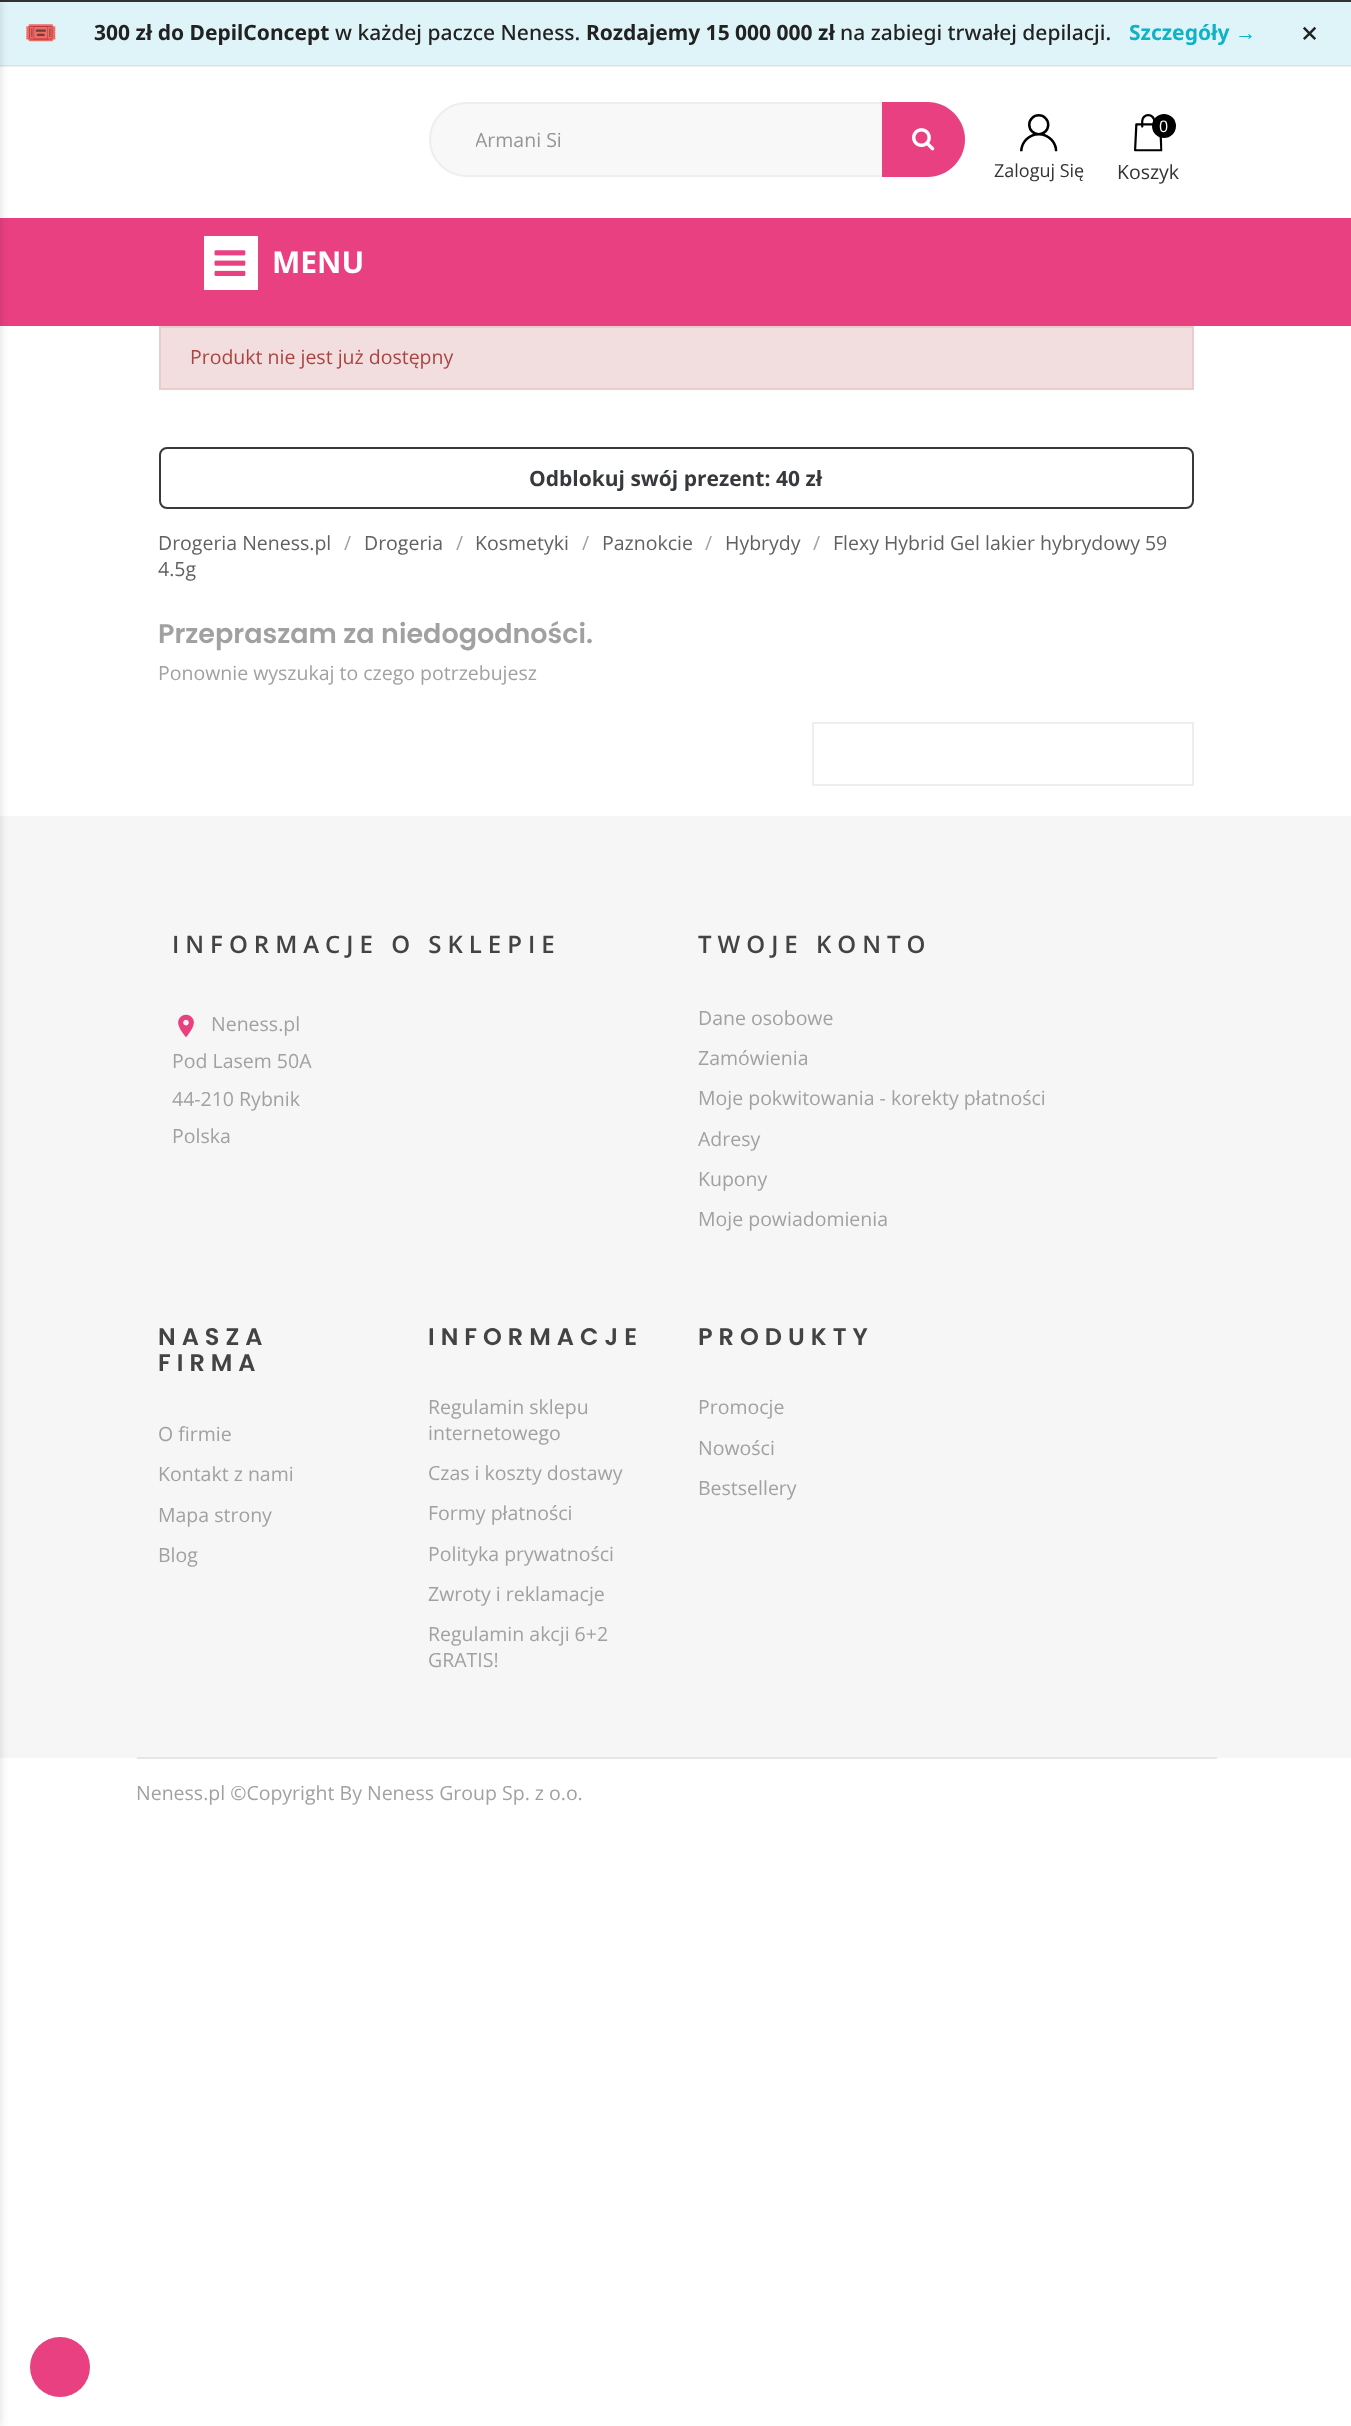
<svg xmlns="http://www.w3.org/2000/svg" width="1351" height="2426">
<defs>
<clipPath id="clip1"><rect x="476" y="126" width="442" height="27"/></clipPath>
</defs>
<rect width="100%" height="100%" fill="#fff"/>
<rect y="66" width="1351" height="1" fill="#f0f0f0"/>
<rect width="1351" height="2" fill="#333"/>
<rect y="2" width="1351" height="63" fill="#dff4f8"/>
<rect y="65" width="1351" height="1" fill="#d2e5e9"/>
<rect y="218" width="1351" height="108" fill="#e84080"/>
<rect y="816" width="1351" height="942" fill="#f6f6f6"/>
<rect x="-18" width="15" height="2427" fill="#00000040" filter="blur(6px)"/>
<text x="24" y="42" style="font-family:Noto Color Emoji;font-size:27px;fill:#222">🎟️</text>
<text x="94" y="40" style="font-family:Noto Sans;font-size:21px;font-weight:bold;fill:#222">300 zł do DepilConcept</text>
<text x="335" y="40" style="font-family:Noto Sans;font-size:21px;font-weight:500;fill:#222">w każdej paczce Neness.</text>
<text x="586" y="40" style="font-family:Noto Sans;font-size:21px;font-weight:bold;fill:#222">Rozdajemy 15 000 000 zł</text>
<text x="840" y="40" style="font-family:Noto Sans;font-size:21px;font-weight:500;fill:#222">na zabiegi trwałej depilacji.</text>
<text x="1129" y="40" style="font-family:Noto Sans;font-size:21px;font-weight:bold;fill:#0fb3c5">Szczegóły</text>
<text x="1235" y="40" style="font-family:Liberation Sans;font-size:21px;font-weight:bold;fill:#0fb3c5">→</text>
<text x="1301" y="44" style="font-family:Noto Sans;font-size:30px;font-weight:500;fill:#222">×</text>
<rect x="430" y="103" width="534" height="73" rx="36.5" fill="#f8f8f8" stroke="#eee" stroke-width="2"/>
<g clip-path="url(#clip1)">
<text x="475" y="147" style="font-family:Open Sans;font-size:19.5px;fill:#959595">Armani Si</text>
</g>
<path d="M882 102h45.5c20.5 0 37.5 17 37.5 37.5c0 20.5-17 37.5-37.5 37.5h-45.5z" fill="#e84080"/>
<image x="912" y="128" width="23" height="23" href="media/1.png"/>
<image x="1134" y="114" width="29" height="38" href="media/2.png"/>
<circle cx="1164" cy="126" r="12" fill="#000"/>
<text x="1159" y="132" style="font-family:Open Sans;font-size:16px;fill:#fff">0</text>
<text x="1117" y="179" style="font-family:Open Sans;font-size:19.5px;fill:#333">Koszyk</text>
<image x="1020" y="114" width="38" height="38" href="media/3.png"/>
<text x="994" y="177" style="font-family:Open Sans;font-size:18px;fill:#333">Zaloguj Się</text>
<rect x="204" y="236" width="54" height="54" fill="#fff"/>
<image x="214" y="250" width="32" height="26" href="media/4.png"/>
<text x="272" y="273" style="font-family:Open Sans;font-size:30px;font-weight:bold;fill:#fff">MENU</text>
<rect x="160" y="327" width="1033" height="62" fill="#f2dede" stroke="#ebcccc" stroke-width="2"/>
<text x="190" y="364" style="font-family:Open Sans;font-size:19.5px;fill:#a94442">Produkt nie jest już dostępny</text>
<rect x="160" y="448" width="1033" height="60" rx="7" fill="none" stroke="#373a3c" stroke-width="2"/>
<text x="529" y="486" style="font-family:Open Sans;font-size:21px;font-weight:bold;fill:#373a3c">Odblokuj swój prezent: 40 zł</text>
<text x="158" y="550" style="font-family:Open Sans;font-size:19.5px;fill:#616161">Drogeria Neness.pl</text>
<text x="344" y="550" style="font-family:Open Sans;font-size:19.5px;fill:#a1a1a1">/</text>
<text x="364" y="550" style="font-family:Open Sans;font-size:19.5px;fill:#616161">Drogeria</text>
<text x="456" y="550" style="font-family:Open Sans;font-size:19.5px;fill:#a1a1a1">/</text>
<text x="475" y="550" style="font-family:Open Sans;font-size:19.5px;fill:#616161">Kosmetyki</text>
<text x="582" y="550" style="font-family:Open Sans;font-size:19.5px;fill:#a1a1a1">/</text>
<text x="602" y="550" style="font-family:Open Sans;font-size:19.5px;fill:#616161">Paznokcie</text>
<text x="705" y="550" style="font-family:Open Sans;font-size:19.5px;fill:#a1a1a1">/</text>
<text x="725" y="550" style="font-family:Open Sans;font-size:19.5px;fill:#616161">Hybrydy</text>
<text x="813" y="550" style="font-family:Open Sans;font-size:19.5px;fill:#a1a1a1">/</text>
<text x="833" y="550" style="font-family:Open Sans;font-size:19.5px;fill:#616161">Flexy Hybrid Gel lakier hybrydowy 59</text>
<text x="158" y="576" style="font-family:Open Sans;font-size:19.5px;fill:#616161">4.5g</text>
<text x="158" y="643" style="font-family:Poppins;font-size:27px;font-weight:600;fill:#a1a1a1">Przepraszam za niedogodności.</text>
<text x="158" y="680" style="font-family:Open Sans;font-size:19.5px;fill:#a1a1a1">Ponownie wyszukaj to czego potrzebujesz</text>
<rect x="813" y="723" width="380" height="62" fill="none" stroke="#eee" stroke-width="2"/>
<rect x="137" y="1757" width="1080" height="2" fill="#e6e6e6"/>
<text x="172" y="953" style="font-family:Open Sans;font-size:24px;font-weight:600;letter-spacing:6px;fill:#434343">INFORMACJE O SKLEPIE</text>
<image x="178" y="1014" width="16" height="24" href="media/5.png"/>
<text x="211" y="1031" style="font-family:Open Sans;font-size:19.5px;fill:#a1a1a1">Neness.pl</text>
<text x="172" y="1068" style="font-family:Open Sans;font-size:19.5px;fill:#a1a1a1">Pod Lasem 50A</text>
<text x="172" y="1106" style="font-family:Open Sans;font-size:19.5px;fill:#a1a1a1">44-210 Rybnik</text>
<text x="172" y="1143" style="font-family:Open Sans;font-size:19.5px;fill:#a1a1a1">Polska</text>
<text x="698" y="953" style="font-family:Open Sans;font-size:24px;font-weight:600;letter-spacing:6px;fill:#434343">TWOJE KONTO</text>
<text x="698" y="1025" style="font-family:Open Sans;font-size:19.5px;fill:#a1a1a1">Dane osobowe</text>
<text x="698" y="1065" style="font-family:Open Sans;font-size:19.5px;fill:#a1a1a1">Zamówienia</text>
<text x="698" y="1105" style="font-family:Open Sans;font-size:19.5px;fill:#a1a1a1">Moje pokwitowania - korekty płatności</text>
<text x="698" y="1146" style="font-family:Open Sans;font-size:19.5px;fill:#a1a1a1">Adresy</text>
<text x="698" y="1186" style="font-family:Open Sans;font-size:19.5px;fill:#a1a1a1">Kupony</text>
<text x="698" y="1226" style="font-family:Open Sans;font-size:19.5px;fill:#a1a1a1">Moje powiadomienia</text>
<text x="158" y="1345" style="font-family:Poppins;font-size:24px;font-weight:600;letter-spacing:6px;fill:#434343">NASZA</text>
<text x="158" y="1371" style="font-family:Poppins;font-size:24px;font-weight:600;letter-spacing:6px;fill:#434343">FIRMA</text>
<text x="158" y="1441" style="font-family:Open Sans;font-size:19.5px;fill:#a1a1a1">O firmie</text>
<text x="158" y="1481" style="font-family:Open Sans;font-size:19.5px;fill:#a1a1a1">Kontakt z nami</text>
<text x="158" y="1522" style="font-family:Open Sans;font-size:19.5px;fill:#a1a1a1">Mapa strony</text>
<text x="158" y="1562" style="font-family:Open Sans;font-size:19.5px;fill:#a1a1a1">Blog</text>
<text x="428" y="1345" style="font-family:Poppins;font-size:24px;font-weight:600;letter-spacing:6px;fill:#434343">INFORMACJE</text>
<text x="428" y="1414" style="font-family:Open Sans;font-size:19.5px;fill:#a1a1a1">Regulamin sklepu</text>
<text x="428" y="1440" style="font-family:Open Sans;font-size:19.5px;fill:#a1a1a1">internetowego</text>
<text x="428" y="1480" style="font-family:Open Sans;font-size:19.5px;fill:#a1a1a1">Czas i koszty dostawy</text>
<text x="428" y="1520" style="font-family:Open Sans;font-size:19.5px;fill:#a1a1a1">Formy płatności</text>
<text x="428" y="1561" style="font-family:Open Sans;font-size:19.5px;fill:#a1a1a1">Polityka prywatności</text>
<text x="428" y="1601" style="font-family:Open Sans;font-size:19.5px;fill:#a1a1a1">Zwroty i reklamacje</text>
<text x="428" y="1641" style="font-family:Open Sans;font-size:19.5px;fill:#a1a1a1">Regulamin akcji 6+2</text>
<text x="428" y="1667" style="font-family:Open Sans;font-size:19.5px;fill:#a1a1a1">GRATIS!</text>
<text x="698" y="1345" style="font-family:Poppins;font-size:24px;font-weight:600;letter-spacing:6px;fill:#434343">PRODUKTY</text>
<text x="698" y="1414" style="font-family:Open Sans;font-size:19.5px;fill:#a1a1a1">Promocje</text>
<text x="698" y="1455" style="font-family:Open Sans;font-size:19.5px;fill:#a1a1a1">Nowości</text>
<text x="698" y="1495" style="font-family:Open Sans;font-size:19.5px;fill:#a1a1a1">Bestsellery</text>
<circle cx="60" cy="2367" r="30" fill="#e84080"/>
<text x="136" y="1800" style="font-family:Open Sans;font-size:19.5px;fill:#a1a1a1">Neness.pl ©Copyright By Neness Group Sp. z o.o.</text>
</svg>
